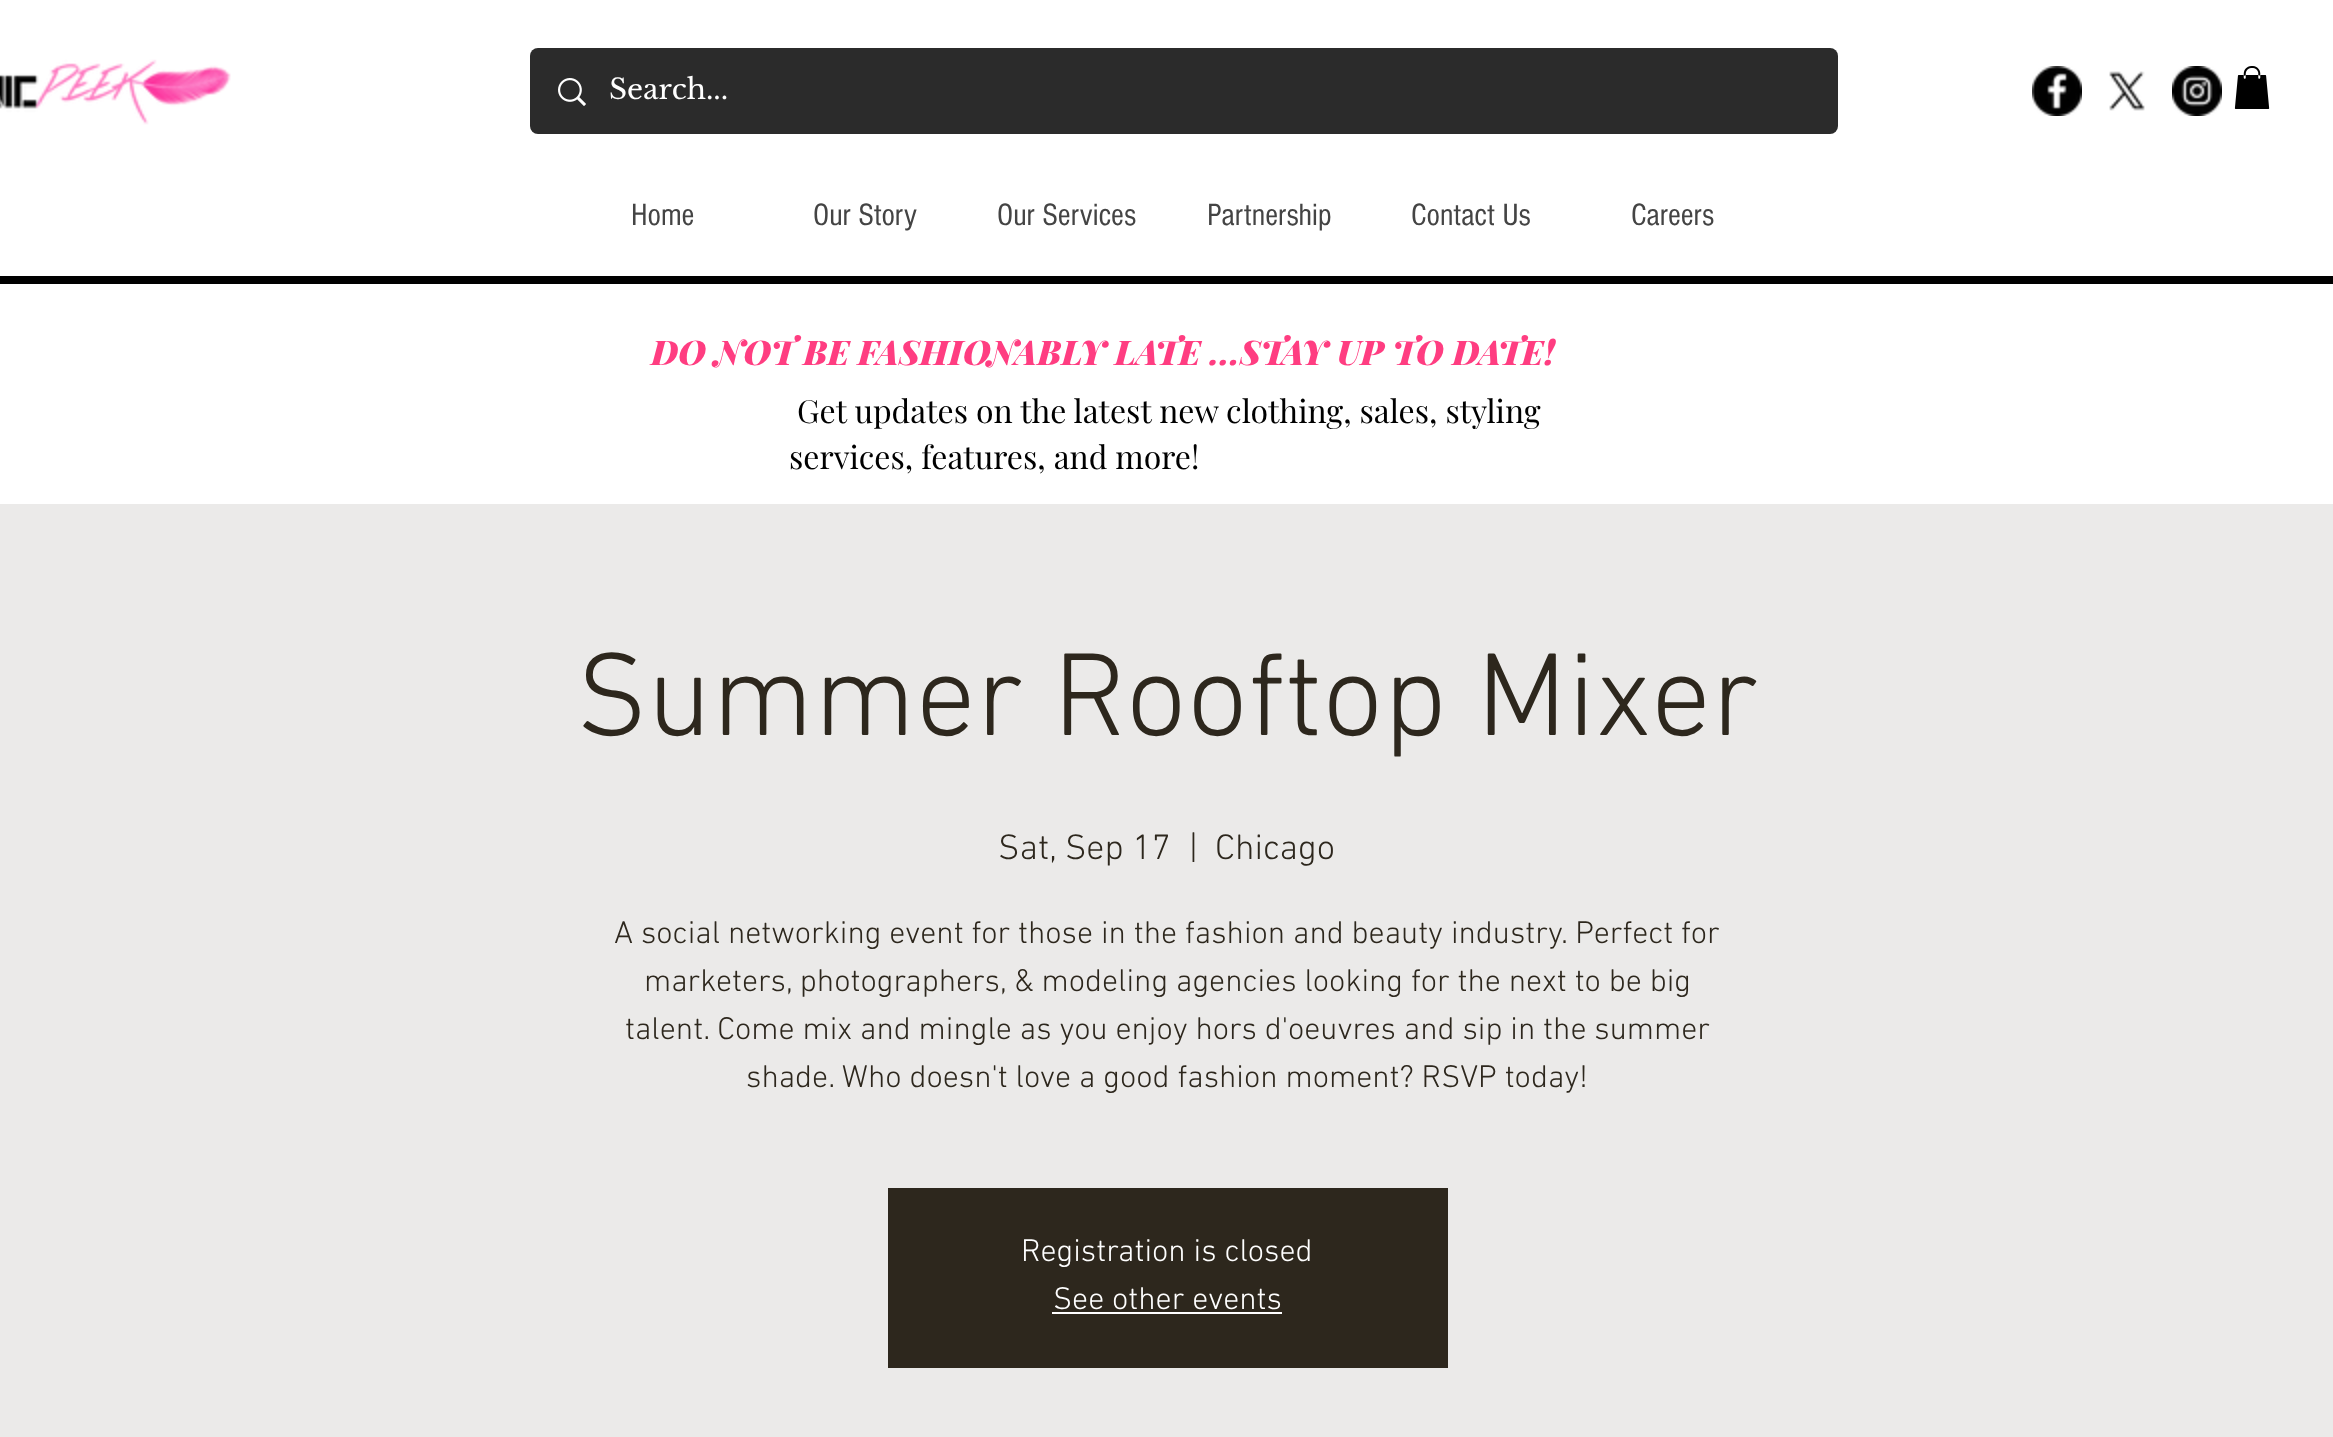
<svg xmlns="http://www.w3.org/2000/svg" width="2333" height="1437">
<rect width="100%" height="100%" fill="#fff"/>
<image x="0" y="59" width="231" height="66" href="media/1.png"/>
<rect x="530" y="48" width="1308" height="86" rx="8" fill="#2b2b2b"/>
<image x="558" y="78" width="28" height="28" href="media/2.png"/>
<text x="609" y="99" style="font-family:Libre Baskerville;font-size:28px;fill:#fff">Search...</text>
<image x="2032" y="66" width="50" height="50" href="media/3.png"/>
<image x="2109" y="71" width="36" height="40" href="media/4.png"/>
<image x="2172" y="66" width="50" height="50" href="media/5.png"/>
<image x="2234" y="66" width="36" height="43" href="media/6.png"/>
<rect y="276" width="2333" height="8" fill="#000"/>
<text x="631" y="225" style="font-family:'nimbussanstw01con';font-size:32px;fill:#444">Home</text>
<text x="813" y="225" style="font-family:'nimbussanstw01con';font-size:32px;fill:#444">Our Story</text>
<text x="997" y="225" style="font-family:'nimbussanstw01con';font-size:32px;fill:#444">Our Services</text>
<text x="1207" y="225" style="font-family:'nimbussanstw01con';font-size:32px;fill:#444">Partnership</text>
<text x="1411" y="225" style="font-family:'nimbussanstw01con';font-size:32px;fill:#444">Contact Us</text>
<text x="1631" y="225" style="font-family:'nimbussanstw01con';font-size:32px;fill:#444">Careers</text>
<text x="651" y="365" style="font-family:Playfair Display;font-size:34px;font-weight:900;font-style:italic;fill:#ff3d81">DO NOT BE FASHIONABLY LATE ...STAY UP TO DATE!</text>
<text x="797" y="423" style="font-family:Playfair Display;font-size:32px;fill:#000">Get updates on the latest new clothing, sales, styling</text>
<text x="789" y="469" style="font-family:Playfair Display;font-size:32px;fill:#000">services, features, and more!</text>
<rect y="504" width="2333" height="933" fill="#ebeae9"/>
<text x="576" y="735" style="font-family:'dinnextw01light';font-size:120px;font-weight:300;fill:#2d271d">Summer Rooftop Mixer</text>
<text x="998" y="859" style="font-family:'dinnextw01light';font-size:36px;font-weight:300;fill:#2d271d">Sat, Sep 17</text>
<text x="1189" y="859" style="font-family:'dinnextw01light';font-size:36px;font-weight:300;fill:#2d271d">|</text>
<text x="1215" y="859" style="font-family:'dinnextw01light';font-size:36px;font-weight:300;fill:#2d271d">Chicago</text>
<text x="614" y="943" style="font-family:'dinnextw01light';font-size:32px;font-weight:300;fill:#2d271d">A social networking event for those in the fashion and beauty industry. Perfect for</text>
<text x="644" y="991" style="font-family:'dinnextw01light';font-size:32px;font-weight:300;fill:#2d271d">marketers, photographers, &amp; modeling agencies looking for the next to be big</text>
<text x="625" y="1039" style="font-family:'dinnextw01light';font-size:32px;font-weight:300;fill:#2d271d">talent. Come mix and mingle as you enjoy hors d'oeuvres and sip in the summer</text>
<text x="746" y="1087" style="font-family:'dinnextw01light';font-size:32px;font-weight:300;fill:#2d271d">shade. Who doesn't love a good fashion moment? RSVP today!</text>
<rect x="888" y="1188" width="560" height="180" fill="#2d271d"/>
<text x="1021" y="1261" style="font-family:'dinnextw01light';font-size:32px;font-weight:300;fill:#fff">Registration is closed</text>
<text x="1053" y="1309" style="font-family:'dinnextw01light';font-size:32px;font-weight:300;fill:#fff">See other events</text>
<rect x="1052" y="1312" width="230" height="2" fill="#fff"/>
</svg>
